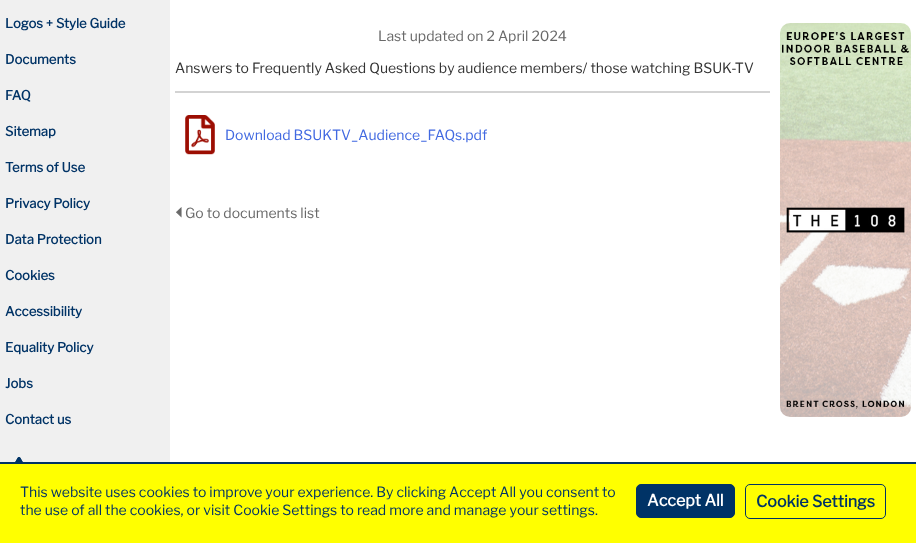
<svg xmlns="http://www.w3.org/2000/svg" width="916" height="543">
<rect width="100%" height="100%" fill="#f0f0f0"/>
<text x="5" y="28" style="font-family:Libre Franklin;font-size:13.1px;font-weight:bold;fill:#036">Logos + Style Guide</text>
<text x="5" y="64" style="font-family:Libre Franklin;font-size:13.1px;font-weight:bold;fill:#036">Documents</text>
<text x="5" y="100" style="font-family:Libre Franklin;font-size:13.1px;font-weight:bold;fill:#036">FAQ</text>
<text x="5" y="136" style="font-family:Libre Franklin;font-size:13.1px;font-weight:bold;fill:#036">Sitemap</text>
<text x="5" y="172" style="font-family:Libre Franklin;font-size:13.1px;font-weight:bold;fill:#036">Terms of Use</text>
<text x="5" y="208" style="font-family:Libre Franklin;font-size:13.1px;font-weight:bold;fill:#036">Privacy Policy</text>
<text x="5" y="244" style="font-family:Libre Franklin;font-size:13.1px;font-weight:bold;fill:#036">Data Protection</text>
<text x="5" y="280" style="font-family:Libre Franklin;font-size:13.1px;font-weight:bold;fill:#036">Cookies</text>
<text x="5" y="316" style="font-family:Libre Franklin;font-size:13.1px;font-weight:bold;fill:#036">Accessibility</text>
<text x="5" y="352" style="font-family:Libre Franklin;font-size:13.1px;font-weight:bold;fill:#036">Equality Policy</text>
<text x="5" y="388" style="font-family:Libre Franklin;font-size:13.1px;font-weight:bold;fill:#036">Jobs</text>
<text x="5" y="424" style="font-family:Libre Franklin;font-size:13.1px;font-weight:bold;fill:#036">Contact us</text>
<image x="15" y="457" width="8" height="5" href="media/1.png"/>
<rect x="170" width="746" height="462" fill="#fff"/>
<text x="378" y="41" style="font-family:Libre Franklin;font-size:14px;fill:#696969">Last updated on 2 April 2024</text>
<text x="175" y="73" style="font-family:Libre Franklin;font-size:14px;fill:#333">Answers to Frequently Asked Questions by audience members/ those watching BSUK-TV</text>
<rect x="175" y="91" width="595" height="2" fill="#d3d3d3"/>
<image x="185" y="115" width="30" height="40" href="media/2.png"/>
<text x="225" y="140" style="font-family:Libre Franklin;font-size:14px;fill:#4169e1">Download BSUKTV_Audience_FAQs.pdf</text>
<image x="176" y="207" width="6" height="11" href="media/3.png"/>
<text x="185" y="218" style="font-family:Libre Franklin;font-size:14px;fill:#696969">Go to documents list</text>
<image x="780" y="23" width="131" height="394" href="media/4.png"/>
<rect y="464" width="916" height="79" fill="#ff0"/>
<rect y="462" width="916" height="2" fill="#036"/>
<text x="20" y="497" style="font-family:Libre Franklin;font-size:14px;fill:#036">This website uses cookies to improve your experience. By clicking Accept All you consent to</text>
<text x="20" y="515" style="font-family:Libre Franklin;font-size:14px;fill:#036">the use of all the cookies, or visit Cookie Settings to read more and manage your settings.</text>
<rect x="636.5" y="484.5" width="98" height="33" rx="4.5" fill="#036" stroke="#036"/>
<text x="647" y="506" style="font-family:Libre Franklin;font-size:16px;font-weight:bold;fill:#fff">Accept All</text>
<rect x="745.5" y="484.5" width="140" height="34" rx="4.5" fill="none" stroke="#036"/>
<text x="756" y="507" style="font-family:Libre Franklin;font-size:16px;font-weight:bold;fill:#036">Cookie Settings</text>
</svg>
